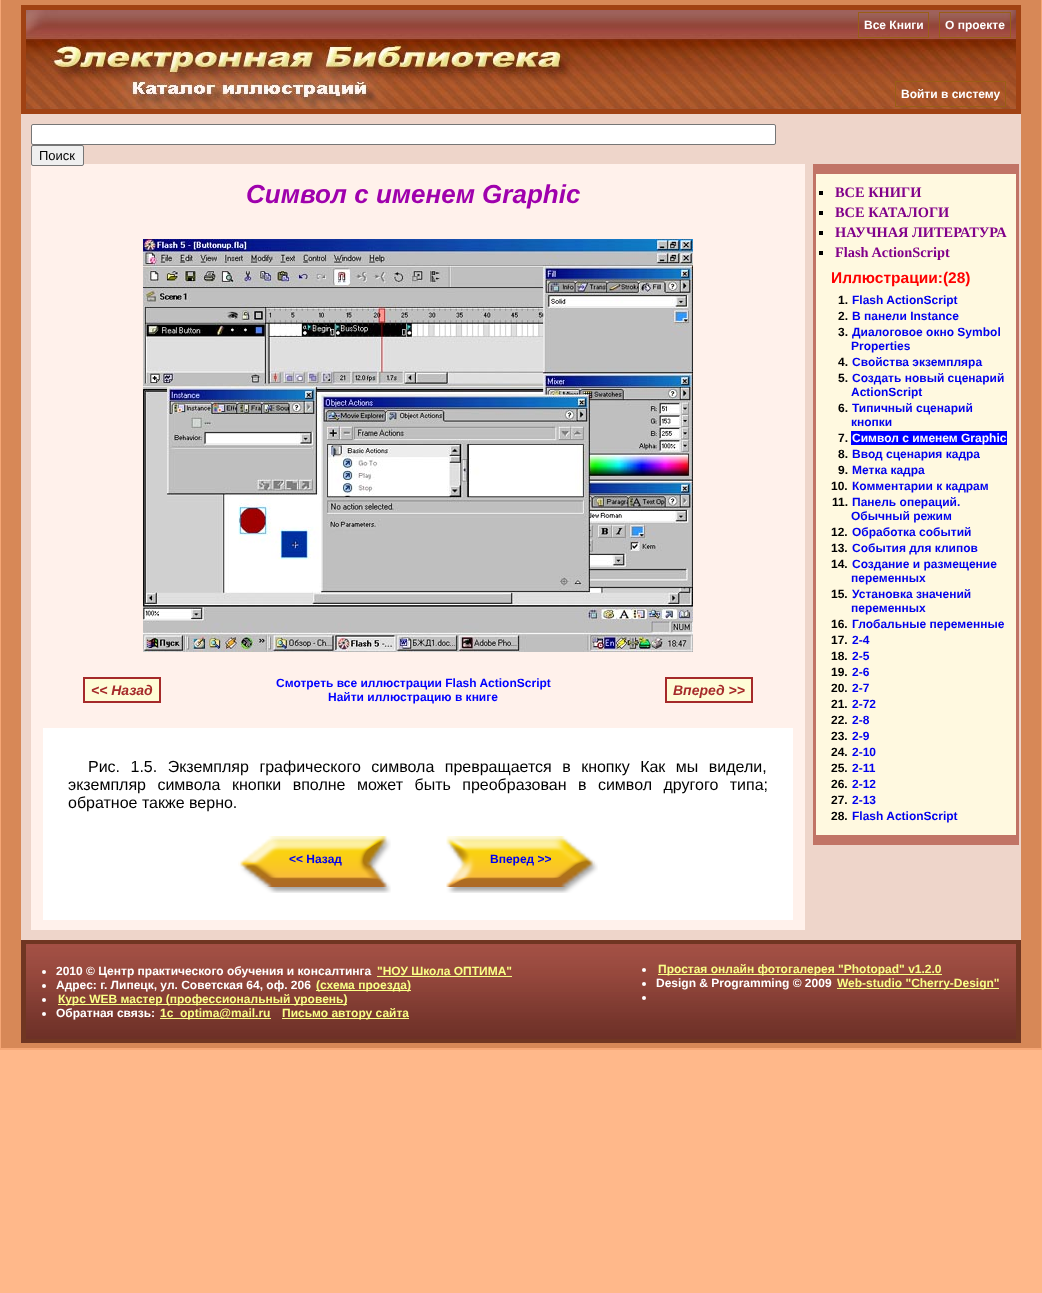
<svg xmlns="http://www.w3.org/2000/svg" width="1042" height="1293">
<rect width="100%" height="100%" fill="#ffb88a"/>
<rect x="21" width="1000" height="5" fill="#d78857"/>
<rect x="1021" width="20" height="1043" fill="#d78857"/>
<rect x="21" y="1043" width="1020" height="5" fill="#d78857"/>
<rect x="1" width="20" height="1048" fill="#d78857"/>
<image x="26" y="10" width="990" height="99" href="media/1.png"/>
<rect x="23.5" y="7.5" width="995" height="104" fill="none" stroke="#a04213" stroke-width="5"/>
<rect x="21" y="114" width="1000" height="826" fill="#eed5ca"/>
<rect x="31.5" y="124.5" width="744" height="20" rx="1.5" fill="#fff" stroke="#767676"/>
<rect x="31" y="164" width="774" height="766" fill="#fff1eb"/>
<image x="143" y="239" width="550" height="413" href="media/2.png"/>
<rect x="84" y="678" width="76" height="24" fill="#fefcd6" stroke="#a52a2a" stroke-width="2"/>
<rect x="666" y="678" width="86" height="24" fill="#fefcd6" stroke="#a52a2a" stroke-width="2"/>
<image x="26" y="944" width="990" height="95" href="media/5.png"/>
<rect x="21" y="940" width="1000" height="4" fill="#703622"/>
<rect x="1016" y="940" width="5" height="103" fill="#703622"/>
<rect x="21" y="1039" width="1000" height="4" fill="#703622"/>
<rect x="21" y="940" width="5" height="103" fill="#703622"/>
<circle cx="44" cy="972" r="2" fill="#fff"/>
<rect x="377" y="976" width="135" height="1" fill="#f9ff87"/>
<circle cx="44" cy="986" r="2" fill="#fff"/>
<rect x="316" y="990" width="95" height="1" fill="#f9ff87"/>
<circle cx="44" cy="1000" r="2" fill="#fff"/>
<rect x="58" y="1004" width="289" height="1" fill="#f9ff87"/>
<circle cx="44" cy="1014" r="2" fill="#fff"/>
<rect x="160" y="1018" width="111" height="1" fill="#f9ff87"/>
<rect x="282" y="1018" width="127" height="1" fill="#f9ff87"/>
<circle cx="644" cy="970" r="2" fill="#fff"/>
<rect x="658" y="974" width="284" height="1" fill="#f9ff87"/>
<circle cx="644" cy="984" r="2" fill="#fff"/>
<rect x="837" y="988" width="162" height="1" fill="#f9ff87"/>
<circle cx="644" cy="998" r="2" fill="#fff"/>
<rect x="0" y="-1" width="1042" height="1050" fill="none" stroke="#f6a776" stroke-width="2"/>
<rect x="858.5" y="12.5" width="70" height="25" fill="none" stroke="#995e15"/>
<text x="864" y="29" style="font-family:Liberation Sans;font-size:12px;font-weight:bold;fill:#fff">Все Книги</text>
<rect x="939.5" y="12.5" width="71" height="25" fill="none" stroke="#995e15"/>
<text x="945" y="29" style="font-family:Liberation Sans;font-size:12px;font-weight:bold;fill:#fff">О проекте</text>
<rect x="895.5" y="81.5" width="110" height="25" fill="none" stroke="#995e15"/>
<text x="901" y="98" style="font-family:Liberation Sans;font-size:12px;font-weight:bold;fill:#fff">Войти в систему</text>
<rect x="31.5" y="145.5" width="52" height="20" rx="1.5" fill="#efefef" stroke="#767676"/>
<text x="39" y="160" style="font-family:Liberation Sans;font-size:13px;fill:#000">Поиск</text>
<text x="246" y="203" style="font-family:Liberation Sans;font-size:26px;font-weight:bold;font-style:italic;fill:#9f01ad">Символ с именем Graphic</text>
<text x="91" y="695" style="font-family:Liberation Sans;font-size:14px;font-weight:bold;font-style:italic;fill:#a52a2a">&lt;&lt; Назад</text>
<text x="276" y="687" style="font-family:Liberation Sans;font-size:12px;font-weight:bold;fill:#00f">Cмотреть все иллюстрации Flash ActionScript</text>
<text x="328" y="701" style="font-family:Liberation Sans;font-size:12px;font-weight:bold;fill:#00f">Найти иллюстрацию в книге</text>
<text x="673" y="695" style="font-family:Liberation Sans;font-size:14px;font-weight:bold;font-style:italic;fill:#a52a2a">Вперед &gt;&gt;</text>
<rect x="43" y="728" width="750" height="192" fill="#fff"/>
<text x="88" y="772" word-spacing="6" style="font-family:Liberation Sans;font-size:16px;fill:#000">Рис. 1.5. Экземпляр графического символа превращается в кнопку Как мы видели,</text>
<text x="68" y="790" word-spacing="7" style="font-family:Liberation Sans;font-size:16px;fill:#000">экземпляр символа кнопки вполне может быть преобразован в символ другого типа;</text>
<text x="68" y="808" style="font-family:Liberation Sans;font-size:16px;fill:#000">обратное также верно.</text>
<image x="238" y="836" width="153" height="57" href="media/3.png"/>
<text x="289" y="863" style="font-family:Liberation Sans;font-size:12px;font-weight:bold;fill:#00e">&lt;&lt; Назад</text>
<image x="446" y="836" width="152" height="57" href="media/4.png"/>
<text x="490" y="863" style="font-family:Liberation Sans;font-size:12px;font-weight:bold;fill:#00e">Вперед &gt;&gt;</text>
<rect x="816" y="174" width="200" height="661" fill="#fff9e0"/>
<rect x="816" y="164" width="200" height="10" fill="#c17466"/>
<rect x="1016" y="164" width="3" height="671" fill="#c17466"/>
<rect x="816" y="835" width="203" height="10" fill="#c17466"/>
<rect x="813" y="164" width="3" height="681" fill="#c17466"/>
<rect x="819" y="191" width="4" height="4" fill="#000"/>
<text x="835" y="197" style="font-family:Liberation Serif;font-size:14.4px;font-weight:bold;fill:#81018a">ВСЕ КНИГИ</text>
<rect x="819" y="211" width="4" height="4" fill="#000"/>
<text x="835" y="217" style="font-family:Liberation Serif;font-size:14.4px;font-weight:bold;fill:#81018a">ВСЕ КАТАЛОГИ</text>
<rect x="819" y="231" width="4" height="4" fill="#000"/>
<text x="835" y="237" style="font-family:Liberation Serif;font-size:14.4px;font-weight:bold;fill:#81018a">НАУЧНАЯ ЛИТЕРАТУРА</text>
<rect x="819" y="251" width="4" height="4" fill="#000"/>
<text x="835" y="257" style="font-family:Liberation Serif;font-size:14.4px;font-weight:bold;fill:#81018a">Flash ActionScript</text>
<text x="831" y="283" style="font-family:Liberation Sans;font-size:15.5px;font-weight:bold;fill:#f00">Иллюстрации:(28)</text>
<text x="838" y="304" style="font-family:Liberation Sans;font-size:12px;font-weight:bold;fill:#000">1.</text>
<text x="852" y="304" style="font-family:Liberation Sans;font-size:12px;font-weight:bold;fill:#00e">Flash ActionScript</text>
<text x="838" y="320" style="font-family:Liberation Sans;font-size:12px;font-weight:bold;fill:#000">2.</text>
<text x="852" y="320" style="font-family:Liberation Sans;font-size:12px;font-weight:bold;fill:#00e">В панели Instance</text>
<text x="838" y="336" style="font-family:Liberation Sans;font-size:12px;font-weight:bold;fill:#000">3.</text>
<text x="852" y="336" style="font-family:Liberation Sans;font-size:12px;font-weight:bold;fill:#00e">Диалоговое окно Symbol</text>
<text x="851" y="350" style="font-family:Liberation Sans;font-size:12px;font-weight:bold;fill:#00e">Properties</text>
<text x="838" y="366" style="font-family:Liberation Sans;font-size:12px;font-weight:bold;fill:#000">4.</text>
<text x="852" y="366" style="font-family:Liberation Sans;font-size:12px;font-weight:bold;fill:#00e">Свойства экземпляра</text>
<text x="838" y="382" style="font-family:Liberation Sans;font-size:12px;font-weight:bold;fill:#000">5.</text>
<text x="852" y="382" style="font-family:Liberation Sans;font-size:12px;font-weight:bold;fill:#00e">Создать новый сценарий</text>
<text x="851" y="396" style="font-family:Liberation Sans;font-size:12px;font-weight:bold;fill:#00e">ActionScript</text>
<text x="838" y="412" style="font-family:Liberation Sans;font-size:12px;font-weight:bold;fill:#000">6.</text>
<text x="852" y="412" style="font-family:Liberation Sans;font-size:12px;font-weight:bold;fill:#00e">Типичный сценарий</text>
<text x="851" y="426" style="font-family:Liberation Sans;font-size:12px;font-weight:bold;fill:#00e">кнопки</text>
<text x="838" y="442" style="font-family:Liberation Sans;font-size:12px;font-weight:bold;fill:#000">7.</text>
<rect x="851" y="431" width="156" height="14" fill="#00f"/>
<text x="852" y="442" style="font-family:Liberation Sans;font-size:12px;font-weight:bold;fill:#fff">Символ с именем Graphic</text>
<text x="838" y="458" style="font-family:Liberation Sans;font-size:12px;font-weight:bold;fill:#000">8.</text>
<text x="852" y="458" style="font-family:Liberation Sans;font-size:12px;font-weight:bold;fill:#00e">Ввод сценария кадра</text>
<text x="838" y="474" style="font-family:Liberation Sans;font-size:12px;font-weight:bold;fill:#000">9.</text>
<text x="852" y="474" style="font-family:Liberation Sans;font-size:12px;font-weight:bold;fill:#00e">Метка кадра</text>
<text x="831" y="490" style="font-family:Liberation Sans;font-size:12px;font-weight:bold;fill:#000">10.</text>
<text x="852" y="490" style="font-family:Liberation Sans;font-size:12px;font-weight:bold;fill:#00e">Комментарии к кадрам</text>
<text x="832" y="506" style="font-family:Liberation Sans;font-size:12px;font-weight:bold;fill:#000">11.</text>
<text x="852" y="506" style="font-family:Liberation Sans;font-size:12px;font-weight:bold;fill:#00e">Панель операций.</text>
<text x="851" y="520" style="font-family:Liberation Sans;font-size:12px;font-weight:bold;fill:#00e">Обычный режим</text>
<text x="831" y="536" style="font-family:Liberation Sans;font-size:12px;font-weight:bold;fill:#000">12.</text>
<text x="852" y="536" style="font-family:Liberation Sans;font-size:12px;font-weight:bold;fill:#00e">Обработка событий</text>
<text x="831" y="552" style="font-family:Liberation Sans;font-size:12px;font-weight:bold;fill:#000">13.</text>
<text x="852" y="552" style="font-family:Liberation Sans;font-size:12px;font-weight:bold;fill:#00e">События для клипов</text>
<text x="831" y="568" style="font-family:Liberation Sans;font-size:12px;font-weight:bold;fill:#000">14.</text>
<text x="852" y="568" style="font-family:Liberation Sans;font-size:12px;font-weight:bold;fill:#00e">Создание и размещение</text>
<text x="851" y="582" style="font-family:Liberation Sans;font-size:12px;font-weight:bold;fill:#00e">переменных</text>
<text x="831" y="598" style="font-family:Liberation Sans;font-size:12px;font-weight:bold;fill:#000">15.</text>
<text x="852" y="598" style="font-family:Liberation Sans;font-size:12px;font-weight:bold;fill:#00e">Установка значений</text>
<text x="851" y="612" style="font-family:Liberation Sans;font-size:12px;font-weight:bold;fill:#00e">переменных</text>
<text x="831" y="628" style="font-family:Liberation Sans;font-size:12px;font-weight:bold;fill:#000">16.</text>
<text x="852" y="628" style="font-family:Liberation Sans;font-size:12px;font-weight:bold;fill:#00e">Глобальные переменные</text>
<text x="831" y="644" style="font-family:Liberation Sans;font-size:12px;font-weight:bold;fill:#000">17.</text>
<text x="852" y="644" style="font-family:Liberation Sans;font-size:12px;font-weight:bold;fill:#00e">2-4</text>
<text x="831" y="660" style="font-family:Liberation Sans;font-size:12px;font-weight:bold;fill:#000">18.</text>
<text x="852" y="660" style="font-family:Liberation Sans;font-size:12px;font-weight:bold;fill:#00e">2-5</text>
<text x="831" y="676" style="font-family:Liberation Sans;font-size:12px;font-weight:bold;fill:#000">19.</text>
<text x="852" y="676" style="font-family:Liberation Sans;font-size:12px;font-weight:bold;fill:#00e">2-6</text>
<text x="831" y="692" style="font-family:Liberation Sans;font-size:12px;font-weight:bold;fill:#000">20.</text>
<text x="852" y="692" style="font-family:Liberation Sans;font-size:12px;font-weight:bold;fill:#00e">2-7</text>
<text x="831" y="708" style="font-family:Liberation Sans;font-size:12px;font-weight:bold;fill:#000">21.</text>
<text x="852" y="708" style="font-family:Liberation Sans;font-size:12px;font-weight:bold;fill:#00e">2-72</text>
<text x="831" y="724" style="font-family:Liberation Sans;font-size:12px;font-weight:bold;fill:#000">22.</text>
<text x="852" y="724" style="font-family:Liberation Sans;font-size:12px;font-weight:bold;fill:#00e">2-8</text>
<text x="831" y="740" style="font-family:Liberation Sans;font-size:12px;font-weight:bold;fill:#000">23.</text>
<text x="852" y="740" style="font-family:Liberation Sans;font-size:12px;font-weight:bold;fill:#00e">2-9</text>
<text x="831" y="756" style="font-family:Liberation Sans;font-size:12px;font-weight:bold;fill:#000">24.</text>
<text x="852" y="756" style="font-family:Liberation Sans;font-size:12px;font-weight:bold;fill:#00e">2-10</text>
<text x="831" y="772" style="font-family:Liberation Sans;font-size:12px;font-weight:bold;fill:#000">25.</text>
<text x="852" y="772" style="font-family:Liberation Sans;font-size:12px;font-weight:bold;fill:#00e">2-11</text>
<text x="831" y="788" style="font-family:Liberation Sans;font-size:12px;font-weight:bold;fill:#000">26.</text>
<text x="852" y="788" style="font-family:Liberation Sans;font-size:12px;font-weight:bold;fill:#00e">2-12</text>
<text x="831" y="804" style="font-family:Liberation Sans;font-size:12px;font-weight:bold;fill:#000">27.</text>
<text x="852" y="804" style="font-family:Liberation Sans;font-size:12px;font-weight:bold;fill:#00e">2-13</text>
<text x="831" y="820" style="font-family:Liberation Sans;font-size:12px;font-weight:bold;fill:#000">28.</text>
<text x="852" y="820" style="font-family:Liberation Sans;font-size:12px;font-weight:bold;fill:#00e">Flash ActionScript</text>
<text x="56" y="975" style="font-family:Liberation Sans;font-size:12px;font-weight:bold;fill:#fff">2010 © Центр практического обучения и консалтинга</text>
<text x="377" y="975" style="font-family:Liberation Sans;font-size:12px;font-weight:bold;fill:#f9ff87">"НОУ Школа ОПТИМА"</text>
<text x="56" y="989" style="font-family:Liberation Sans;font-size:12px;font-weight:bold;fill:#fff">Адрес: г. Липецк, ул. Советская 64, оф. 206</text>
<text x="316" y="989" style="font-family:Liberation Sans;font-size:12px;font-weight:bold;fill:#f9ff87">(схема проезда)</text>
<text x="58" y="1003" style="font-family:Liberation Sans;font-size:12px;font-weight:bold;fill:#f9ff87">Курс WEB мастер (профессиональный уровень)</text>
<text x="56" y="1017" style="font-family:Liberation Sans;font-size:12px;font-weight:bold;fill:#fff">Обратная связь:</text>
<text x="160" y="1017" style="font-family:Liberation Sans;font-size:12px;font-weight:bold;fill:#f9ff87">1c_optima@mail.ru</text>
<text x="282" y="1017" style="font-family:Liberation Sans;font-size:12px;font-weight:bold;fill:#f9ff87">Письмо автору сайта</text>
<text x="658" y="973" style="font-family:Liberation Sans;font-size:12px;font-weight:bold;fill:#f9ff87">Простая онлайн фотогалерея "Photopad" v1.2.0</text>
<text x="656" y="987" style="font-family:Liberation Sans;font-size:12px;font-weight:bold;fill:#fff">Design &amp; Programming © 2009</text>
<text x="837" y="987" style="font-family:Liberation Sans;font-size:12px;font-weight:bold;fill:#f9ff87">Web-studio "Cherry-Design"</text>
</svg>
